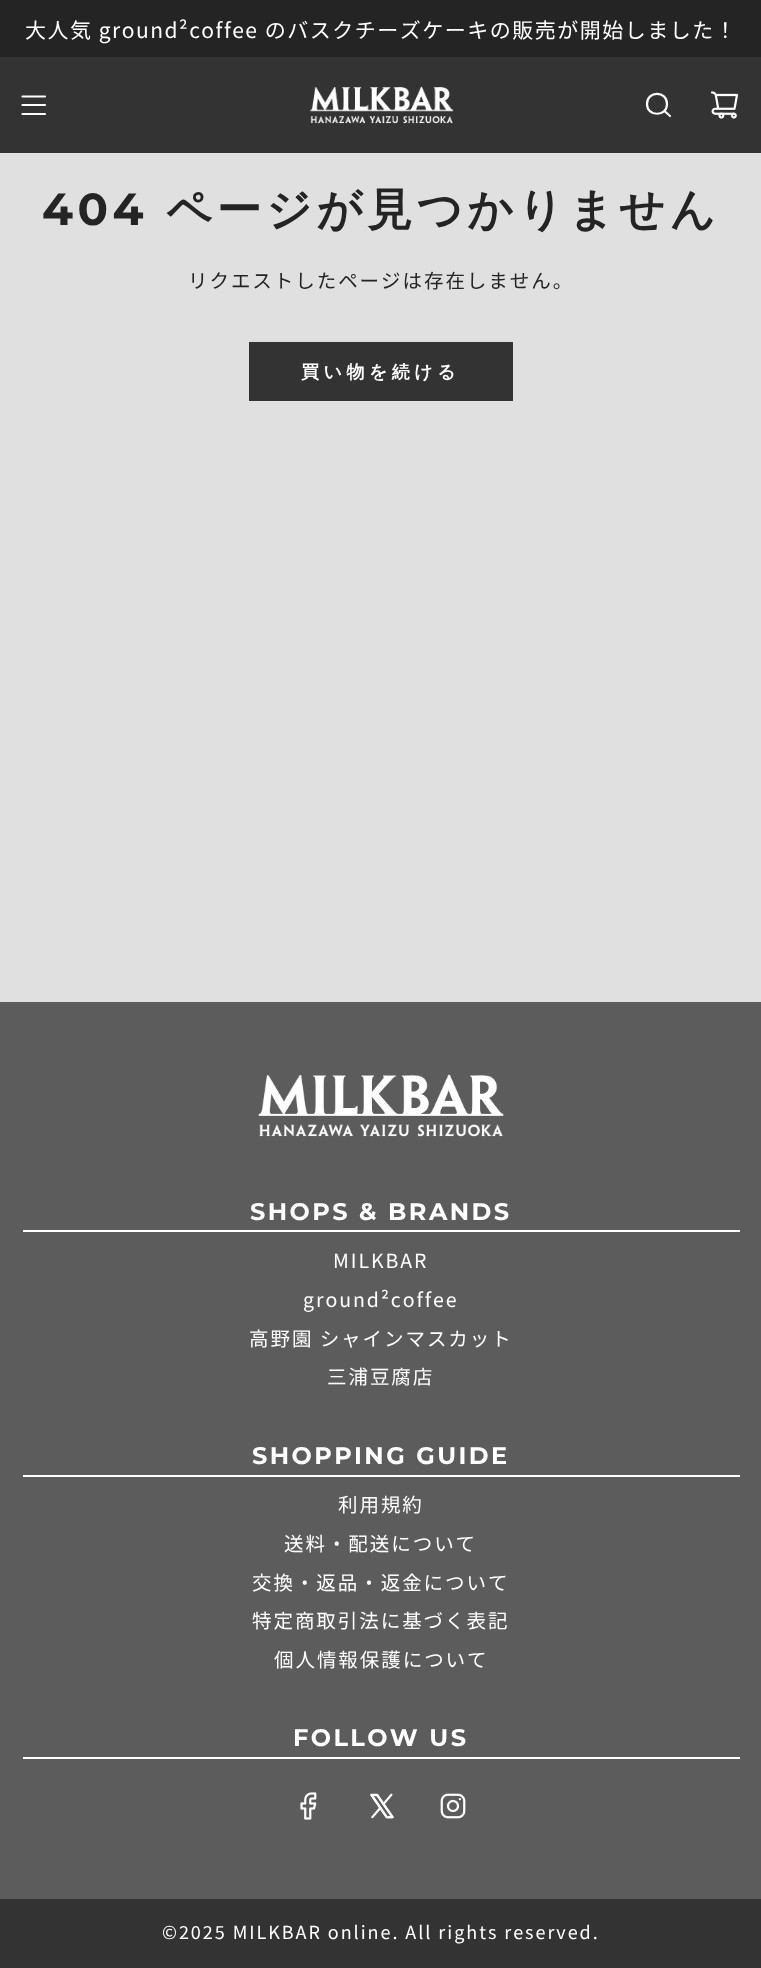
<svg xmlns="http://www.w3.org/2000/svg" width="761" height="1968">
<style>*{font-kerning:none!important;font-variant-ligatures:none!important}</style>
<rect width="100%" height="100%" fill="#e0e0e0"/>
<rect width="761" height="57" fill="#242424"/>
<text x="25" y="38" style="font-family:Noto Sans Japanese;font-size:21px;letter-spacing:1.5px;fill:#fff">大人気 ground²coffee のバスクチーズケーキの販売が開始しました！</text>
<rect y="57" width="761" height="96" fill="#333"/>
<path d="M22.5 96.5h22.5m-22.5 8.5h22.5m-22.5 9h22.5" fill="none" stroke="#fff" stroke-width="2.2" stroke-linecap="round" stroke-linejoin="round"/>
<image x="309" y="86" width="145" height="38" href="media/1.png"/>
<path d="M665 111.5l5 4.5m-23-12c0 13 20 13 20 0c0-13.5-20-13.5-20 0z" fill="none" stroke="#fff" stroke-width="2.2" stroke-linecap="round" stroke-linejoin="round"/>
<image x="710" y="91" width="29" height="28" href="media/2.png"/>
<text x="42" y="225" style="font-family:Montserrat;font-size:45px;font-weight:bold;letter-spacing:4.5px;fill:#242424">404</text>
<text x="166" y="225" style="font-family:WenQuanYi Zen Hei;font-size:45px;font-weight:bold;letter-spacing:4.5px;fill:#242424">ページが見つかりません</text>
<text x="188" y="288" style="font-family:Noto Sans Japanese;font-size:19.5px;letter-spacing:1.95px;fill:#242424">リクエストしたページは存在しません。</text>
<rect x="249" y="342" width="264" height="59" fill="#333"/>
<text x="301" y="378" style="font-family:WenQuanYi Zen Hei;font-size:18px;font-weight:bold;letter-spacing:4.5px;fill:#fff">買い物を続ける</text>
<rect y="1002" width="761" height="897" fill="#5c5c5c"/>
<image x="258" y="1074" width="246" height="63" href="media/3.png"/>
<rect x="23" y="1230" width="717" height="2" fill="#fff"/>
<text x="250" y="1220" style="font-family:Montserrat;font-size:24px;font-weight:bold;letter-spacing:2.4px;fill:#fff">SHOPS &amp; BRANDS</text>
<text x="333" y="1268" style="font-family:Noto Sans Japanese;font-size:19.5px;letter-spacing:1.95px;fill:#fff">MILKBAR</text>
<text x="303" y="1307" style="font-family:Noto Sans Japanese;font-size:19.5px;letter-spacing:1.95px;fill:#fff">ground²coffee</text>
<text x="249" y="1346" style="font-family:Noto Sans Japanese;font-size:19.5px;letter-spacing:1.95px;fill:#fff">高野園 シャインマスカット</text>
<text x="327" y="1384" style="font-family:Noto Sans Japanese;font-size:19.5px;letter-spacing:1.95px;fill:#fff">三浦豆腐店</text>
<rect x="23" y="1475" width="717" height="2" fill="#fff"/>
<text x="252" y="1464" style="font-family:Montserrat;font-size:24px;font-weight:bold;letter-spacing:2.4px;fill:#fff">SHOPPING GUIDE</text>
<text x="338" y="1512" style="font-family:Noto Sans Japanese;font-size:19.5px;letter-spacing:1.95px;fill:#fff">利用規約</text>
<text x="284" y="1551" style="font-family:Noto Sans Japanese;font-size:19.5px;letter-spacing:1.95px;fill:#fff">送料・配送について</text>
<text x="252" y="1590" style="font-family:Noto Sans Japanese;font-size:19.5px;letter-spacing:1.95px;fill:#fff">交換・返品・返金について</text>
<text x="252" y="1628" style="font-family:Noto Sans Japanese;font-size:19.5px;letter-spacing:1.95px;fill:#fff">特定商取引法に基づく表記</text>
<text x="274" y="1667" style="font-family:Noto Sans Japanese;font-size:19.5px;letter-spacing:1.95px;fill:#fff">個人情報保護について</text>
<rect x="23" y="1757" width="717" height="2" fill="#fff"/>
<text x="293" y="1746" style="font-family:Montserrat;font-size:24px;font-weight:bold;letter-spacing:2.4px;fill:#fff">FOLLOW US</text>
<image x="300" y="1792" width="17" height="28" href="media/4.png"/>
<image x="370" y="1793" width="24" height="26" href="media/5.png"/>
<image x="440" y="1793" width="26" height="26" href="media/6.png"/>
<rect y="1899" width="761" height="69" fill="#333"/>
<text x="162" y="1939" style="font-family:Noto Sans Japanese;font-size:18px;letter-spacing:1.95px;fill:#fff">©2025 MILKBAR online. All rights reserved.</text>
</svg>
